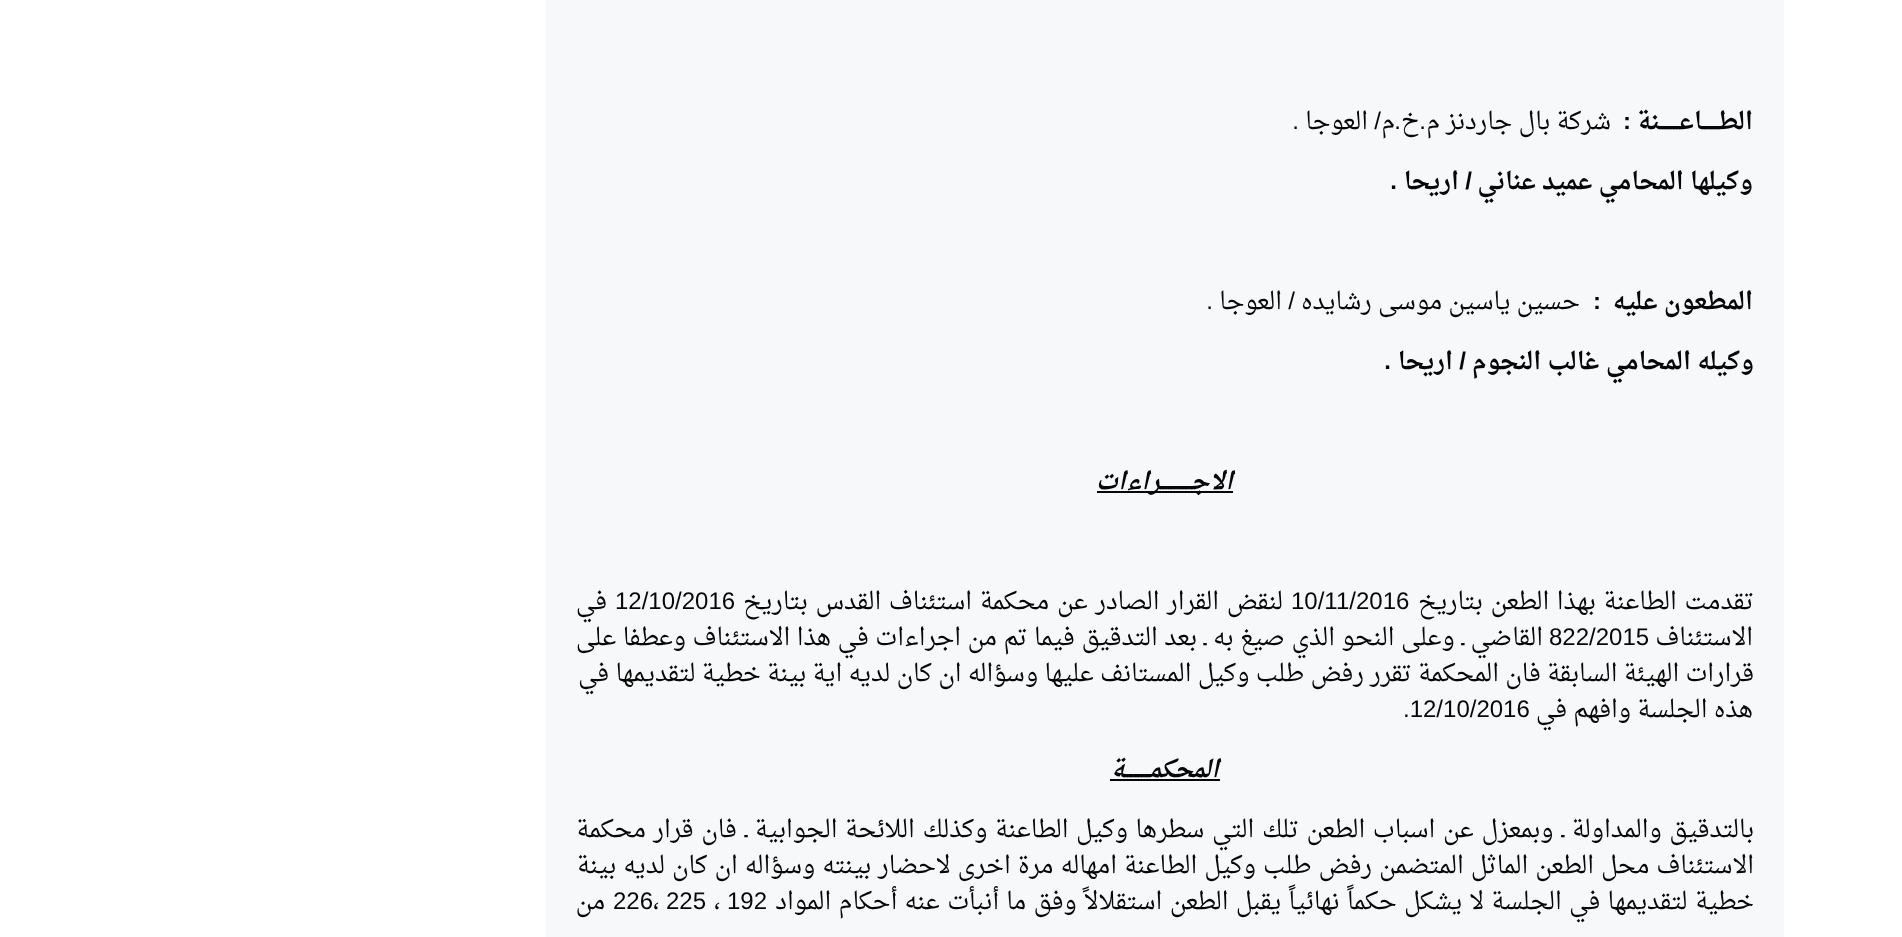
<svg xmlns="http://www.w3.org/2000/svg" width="1902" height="937">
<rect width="100%" height="100%" fill="#fff"/>
<rect x="546" width="1238" height="937" fill="#f7f8f9"/>
<text x="1753" y="129" style="font-family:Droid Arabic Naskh;font-size:24px;font-weight:bold;direction:rtl;fill:#070707">الطــــــاعـــــــنة</text>
<text x="1631" y="129" style="font-family:Liberation Sans;font-size:24px;font-weight:bold;direction:rtl;fill:#070707">:</text>
<text x="1611" y="129" style="font-family:Droid Arabic Naskh;font-size:24px;direction:rtl;fill:#070707">شركة بال جاردنز م</text>
<text x="1426" y="129" style="font-family:Liberation Sans;font-size:24px;direction:rtl;fill:#070707">.</text>
<text x="1419" y="129" style="font-family:Droid Arabic Naskh;font-size:24px;direction:rtl;fill:#070707">خ</text>
<text x="1401" y="129" style="font-family:Liberation Sans;font-size:24px;direction:rtl;fill:#070707">.</text>
<text x="1395" y="129" style="font-family:Droid Arabic Naskh;font-size:24px;direction:rtl;fill:#070707">م</text>
<text x="1381" y="129" style="font-family:Liberation Sans;font-size:24px;direction:rtl;fill:#070707">/</text>
<text x="1368" y="129" style="font-family:Droid Arabic Naskh;font-size:24px;direction:rtl;fill:#070707">العوجا</text>
<text x="1299" y="129" style="font-family:Liberation Sans;font-size:24px;direction:rtl;fill:#070707">.</text>
<text x="1753" y="189" style="font-family:Droid Arabic Naskh;font-size:24px;font-weight:bold;direction:rtl;fill:#070707">وكيلها المحامي عميد عناني</text>
<text x="1472" y="189" style="font-family:Liberation Sans;font-size:24px;font-weight:bold;direction:rtl;fill:#070707">/</text>
<text x="1459" y="189" style="font-family:Droid Arabic Naskh;font-size:24px;font-weight:bold;direction:rtl;fill:#070707">اريحا</text>
<text x="1397" y="189" style="font-family:Liberation Sans;font-size:24px;font-weight:bold;direction:rtl;fill:#070707">.</text>
<text x="1753" y="309" style="font-family:Droid Arabic Naskh;font-size:24px;font-weight:bold;direction:rtl;fill:#070707">المطعون عليه</text>
<text x="1601" y="309" style="font-family:Liberation Sans;font-size:24px;font-weight:bold;direction:rtl;fill:#070707">:</text>
<text x="1580" y="309" style="font-family:Droid Arabic Naskh;font-size:24px;direction:rtl;fill:#070707">حسين ياسين موسى رشايده</text>
<text x="1295" y="309" style="font-family:Liberation Sans;font-size:24px;direction:rtl;fill:#070707">/</text>
<text x="1282" y="309" style="font-family:Droid Arabic Naskh;font-size:24px;direction:rtl;fill:#070707">العوجا</text>
<text x="1213" y="309" style="font-family:Liberation Sans;font-size:24px;direction:rtl;fill:#070707">.</text>
<text x="1754" y="369" style="font-family:Droid Arabic Naskh;font-size:24px;font-weight:bold;direction:rtl;fill:#070707">وكيله المحامي غالب النجوم</text>
<text x="1466" y="369" style="font-family:Liberation Sans;font-size:24px;font-weight:bold;direction:rtl;fill:#070707">/</text>
<text x="1453" y="369" style="font-family:Droid Arabic Naskh;font-size:24px;font-weight:bold;direction:rtl;fill:#070707">اريحا</text>
<text x="1391" y="369" style="font-family:Liberation Sans;font-size:24px;font-weight:bold;direction:rtl;fill:#070707">.</text>
<rect x="1097" y="491" width="136" height="2" fill="#070707"/>
<text x="1233" y="489" style="font-family:Droid Arabic Naskh;font-size:24px;font-weight:bold;font-style:italic;direction:rtl;fill:#070707">الاجـــــــــــراءات</text>
<text x="1754" y="609" word-spacing="1.5" style="font-family:Droid Arabic Naskh;font-size:24px;direction:rtl;fill:#070707">تقدمت الطاعنة بهذا الطعن بتاريخ</text>
<text x="1291" y="609" style="font-family:Liberation Sans;font-size:24px;fill:#070707">10/11/2016</text>
<text x="1283" y="609" word-spacing="1.5" style="font-family:Droid Arabic Naskh;font-size:24px;direction:rtl;fill:#070707">لنقض القرار الصادر عن محكمة استئناف القدس بتاريخ</text>
<text x="615" y="609" style="font-family:Liberation Sans;font-size:24px;fill:#070707">12/10/2016</text>
<text x="607" y="609" style="font-family:Droid Arabic Naskh;font-size:24px;direction:rtl;fill:#070707">في</text>
<text x="1753" y="645" style="font-family:Droid Arabic Naskh;font-size:24px;direction:rtl;fill:#070707">الاستئناف</text>
<text x="1549" y="645" style="font-family:Liberation Sans;font-size:24px;fill:#070707">822/2015</text>
<text x="1543" y="645" word-spacing="0.25" style="font-family:Droid Arabic Naskh;font-size:24px;direction:rtl;fill:#070707">القاضي ـ وعلى النحو الذي صيغ به ـ بعد التدقيق فيما تم من اجراءات في هذا الاستئناف وعطفا على</text>
<text x="1754" y="681" style="font-family:Droid Arabic Naskh;font-size:24px;direction:rtl;fill:#070707">قرارات الهيئة السابقة فان المحكمة تقرر رفض طلب وكيل المستانف عليها وسؤاله ان كان لديه اية بينة خطية لتقديمها في</text>
<text x="1753" y="717" style="font-family:Droid Arabic Naskh;font-size:24px;direction:rtl;fill:#070707">هذه الجلسة وافهم في</text>
<text x="1403" y="717" style="font-family:Liberation Sans;font-size:24px;fill:#070707">.12/10/2016</text>
<text x="1219" y="777" style="font-family:Droid Arabic Naskh;font-size:24px;font-weight:bold;font-style:italic;direction:rtl;fill:#070707">المحكمـــــــــة</text>
<rect x="1110" y="779" width="110" height="2" fill="#070707"/>
<text x="1754" y="837" word-spacing="1.4" style="font-family:Droid Arabic Naskh;font-size:24px;direction:rtl;fill:#070707">بالتدقيق والمداولة ـ وبمعزل عن اسباب الطعن تلك التي سطرها وكيل الطاعنة وكذلك اللائحة الجوابية ـ فان قرار محكمة</text>
<text x="1754" y="873" word-spacing="0.75" style="font-family:Droid Arabic Naskh;font-size:24px;direction:rtl;fill:#070707">الاستئناف محل الطعن الماثل المتضمن رفض طلب وكيل الطاعنة امهاله مرة اخرى لاحضار بينته وسؤاله ان كان لديه بينة</text>
<text x="1754" y="909" word-spacing="1.1" style="font-family:Droid Arabic Naskh;font-size:24px;direction:rtl;fill:#070707">خطية لتقديمها في الجلسة لا يشكل حكماً نهائياً يقبل الطعن استقلالاً وفق ما أنبأت عنه أحكام المواد</text>
<text x="727" y="909" style="font-family:Liberation Sans;font-size:24px;fill:#070707">192</text>
<text x="714" y="909" style="font-family:Droid Arabic Naskh;font-size:24px;fill:#070707">،</text>
<text x="666" y="909" style="font-family:Liberation Sans;font-size:24px;fill:#070707">225</text>
<text x="653" y="909" style="font-family:Droid Arabic Naskh;font-size:24px;fill:#070707">،</text>
<text x="613" y="909" style="font-family:Liberation Sans;font-size:24px;fill:#070707">226</text>
<text x="605" y="909" style="font-family:Droid Arabic Naskh;font-size:24px;direction:rtl;fill:#070707">من</text>
</svg>
